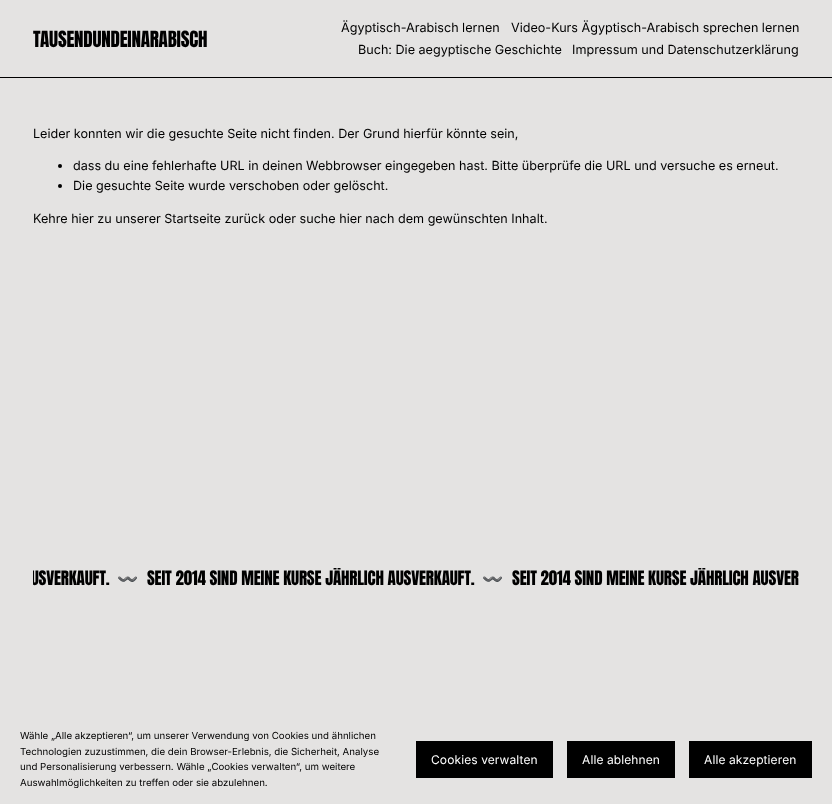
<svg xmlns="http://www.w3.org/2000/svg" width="832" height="804">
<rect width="100%" height="100%" fill="#e4e3e2"/>
<text x="33" y="47" style="font-family:Anton;font-size:19px;letter-spacing:-0.2px;fill:#000">TAUSENDUNDEINARABISCH</text>
<text x="341" y="32" style="font-family:Inter;font-size:12.6px;fill:#000">Ägyptisch-Arabisch lernen</text>
<text x="511" y="32" style="font-family:Inter;font-size:12.6px;fill:#000">Video-Kurs Ägyptisch-Arabisch sprechen lernen</text>
<text x="358" y="54" style="font-family:Inter;font-size:12.6px;fill:#000">Buch: Die aegyptische Geschichte</text>
<text x="572" y="54" style="font-family:Inter;font-size:12.6px;fill:#000">Impressum und Datenschutzerklärung</text>
<rect y="77" width="832" height="1" fill="#000"/>
<text x="33" y="138" style="font-family:Inter;font-size:12.6px;fill:#000">Leider konnten wir die gesuchte Seite nicht finden. Der Grund hierfür könnte sein,</text>
<circle cx="60" cy="166" r="2" fill="#000"/>
<text x="73" y="170" style="font-family:Inter;font-size:12.6px;fill:#000">dass du eine fehlerhafte URL in deinen Webbrowser eingegeben hast. Bitte überprüfe die URL und versuche es erneut.</text>
<circle cx="60" cy="186" r="2" fill="#000"/>
<text x="73" y="190" style="font-family:Inter;font-size:12.6px;fill:#000">Die gesuchte Seite wurde verschoben oder gelöscht.</text>
<text x="33" y="223" style="font-family:Inter;font-size:12.6px;fill:#000">Kehre hier zu unserer Startseite zurück oder suche hier nach dem gewünschten Inhalt.</text>
<image x="33" y="568" width="766" height="18" href="media/1.png"/>
<text x="20" y="739" style="font-family:Inter;font-size:9.7px;fill:#000">Wähle „Alle akzeptieren“, um unserer Verwendung von Cookies und ähnlichen</text>
<text x="20" y="755" style="font-family:Inter;font-size:9.7px;fill:#000">Technologien zuzustimmen, die dein Browser-Erlebnis, die Sicherheit, Analyse</text>
<text x="20" y="770" style="font-family:Inter;font-size:9.7px;fill:#000">und Personalisierung verbessern. Wähle „Cookies verwalten“, um weitere</text>
<text x="20" y="786" style="font-family:Inter;font-size:9.7px;fill:#000">Auswahlmöglichkeiten zu treffen oder sie abzulehnen.</text>
<rect x="416" y="741" width="137" height="37" fill="#000"/>
<text x="431" y="764" style="font-family:Inter;font-size:12px;letter-spacing:0.1px;fill:#fff">Cookies verwalten</text>
<rect x="567" y="741" width="108" height="37" fill="#000"/>
<text x="582" y="764" style="font-family:Inter;font-size:12px;letter-spacing:0.1px;fill:#fff">Alle ablehnen</text>
<rect x="689" y="741" width="123" height="37" fill="#000"/>
<text x="704" y="764" style="font-family:Inter;font-size:12px;letter-spacing:0.1px;fill:#fff">Alle akzeptieren</text>
</svg>
